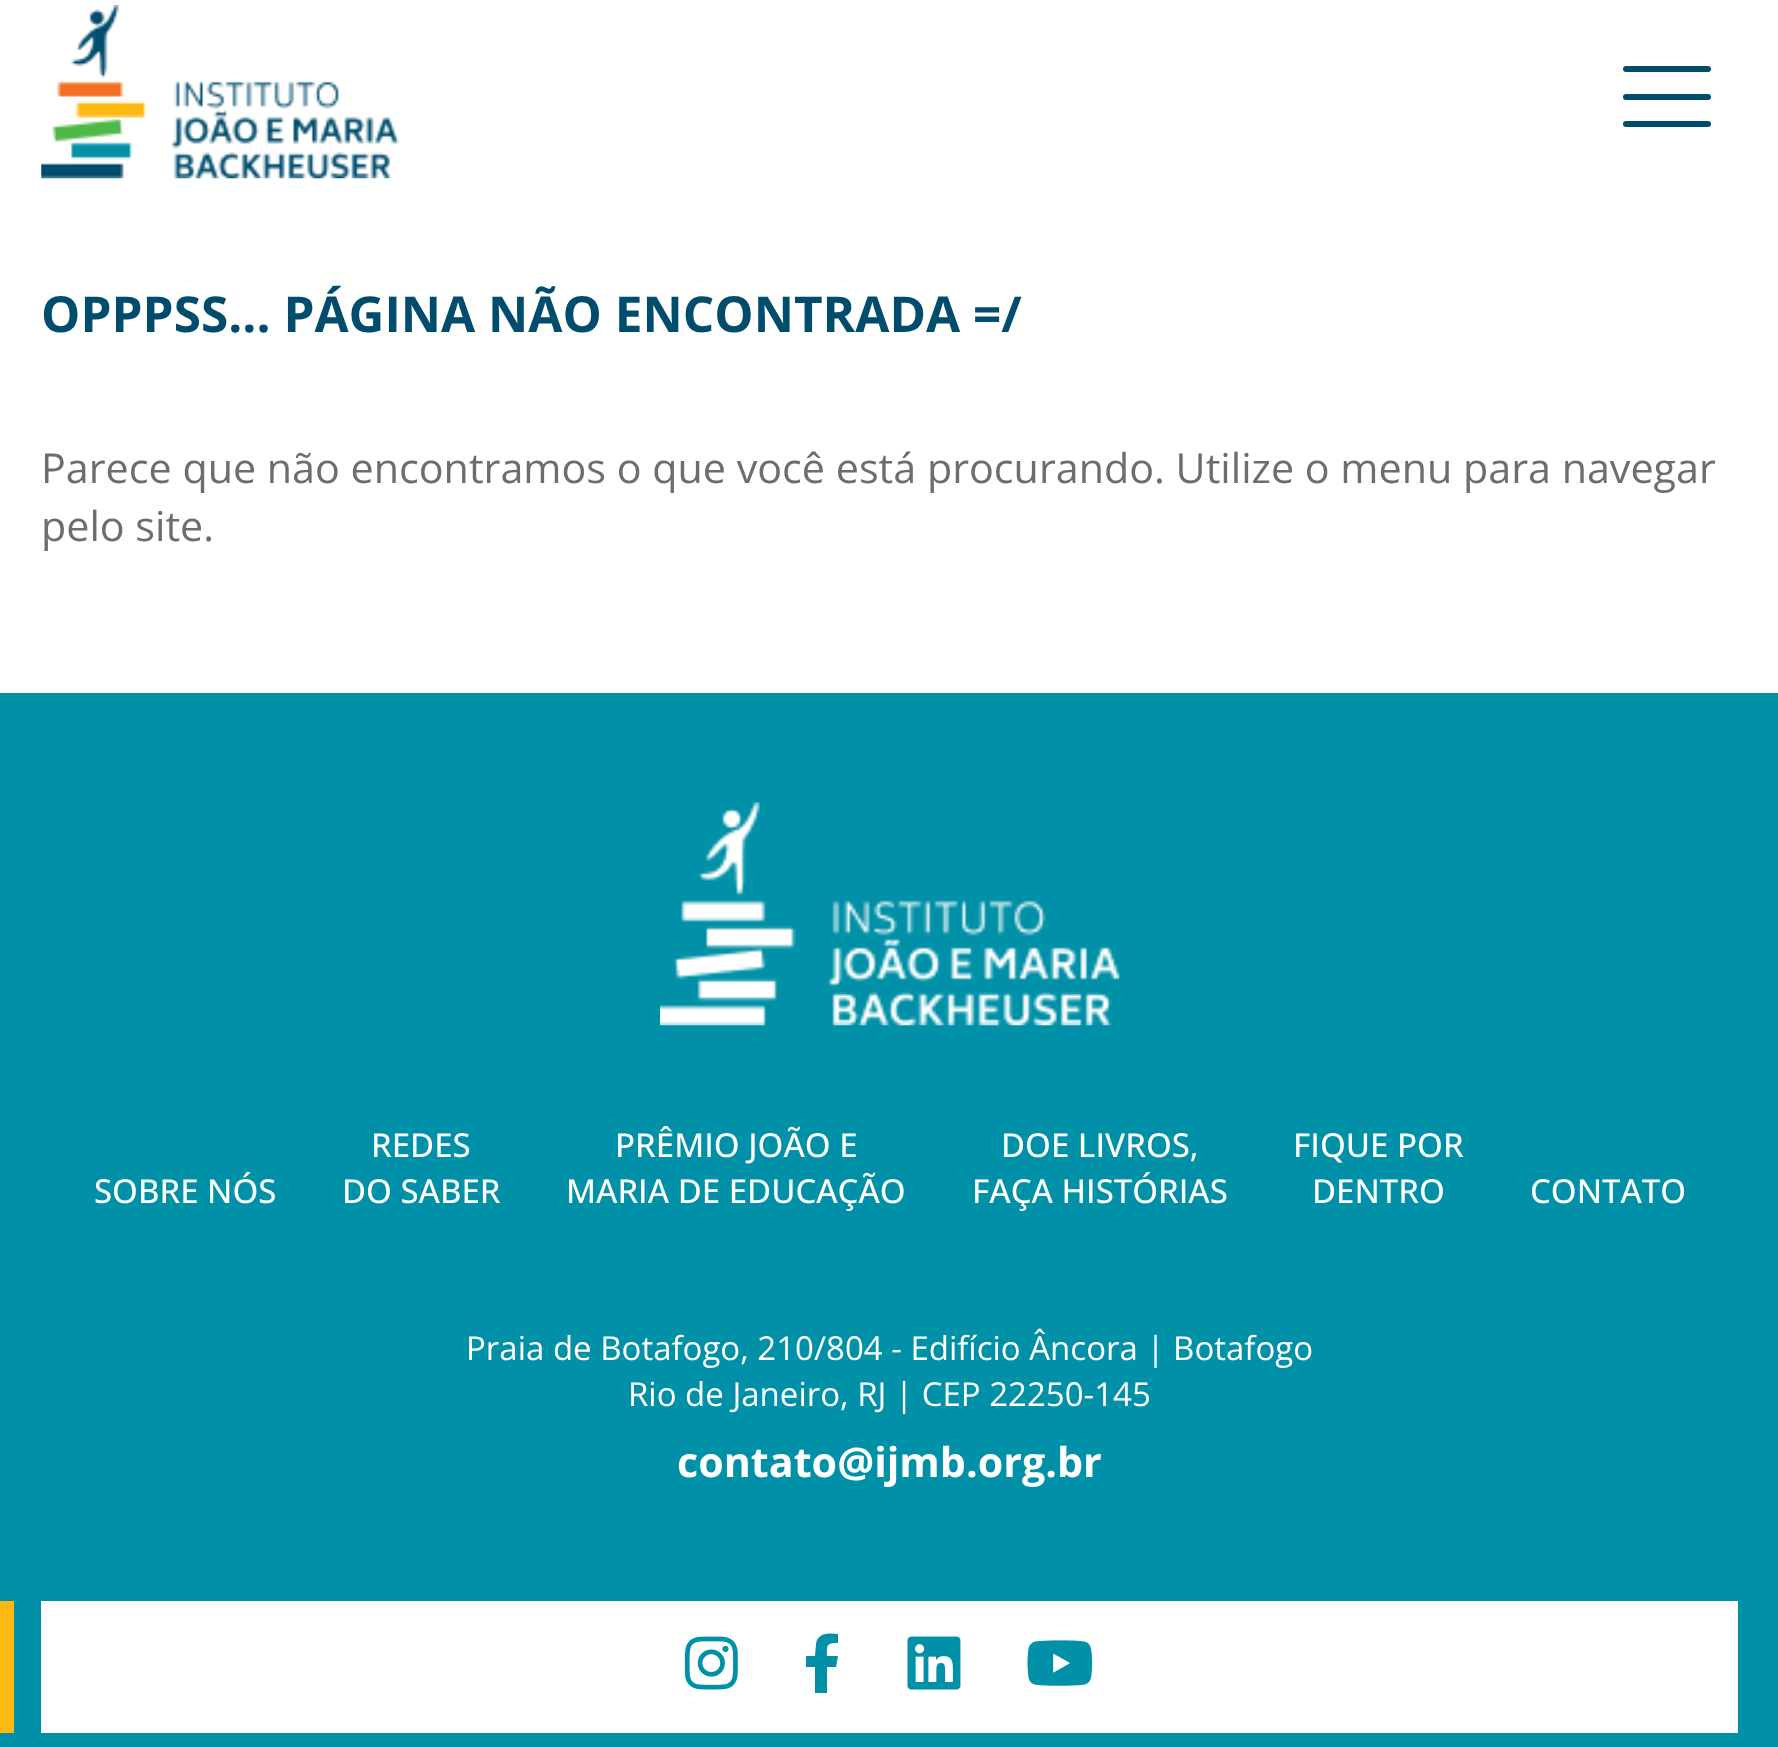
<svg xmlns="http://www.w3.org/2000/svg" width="1778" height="1747">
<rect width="100%" height="100%" fill="#fff"/>
<image x="41" y="5" width="358" height="174" href="media/1.png"/>
<rect x="1623" y="66" width="88" height="6" rx="3" fill="#004c6d"/>
<rect x="1623" y="94" width="88" height="6" rx="3" fill="#004c6d"/>
<rect x="1623" y="121" width="88" height="6" rx="3" fill="#004c6d"/>
<text x="41" y="332" style="font-family:Open Sans;font-size:49.5px;font-weight:bold;fill:#004c6d">OPPPSS... PÁGINA NÃO ENCONTRADA =/</text>
<text x="41" y="483" style="font-family:Open Sans;font-size:41.25px;fill:#6d6d6d">Parece que não encontramos o que você está procurando. Utilize o menu para navegar</text>
<text x="41" y="541" style="font-family:Open Sans;font-size:41.25px;fill:#6d6d6d">pelo site.</text>
<rect y="693" width="1778" height="1054" fill="#0090a7"/>
<image x="660" y="802" width="460" height="224" href="media/2.png"/>
<text x="94" y="1203" style="font-family:Open Sans;font-size:33px;font-weight:500;fill:#fff">SOBRE NÓS</text>
<text x="371" y="1157" style="font-family:Open Sans;font-size:33px;font-weight:500;fill:#fff">REDES</text>
<text x="342" y="1203" style="font-family:Open Sans;font-size:33px;font-weight:500;fill:#fff">DO SABER</text>
<text x="615" y="1157" style="font-family:Open Sans;font-size:33px;font-weight:500;fill:#fff">PRÊMIO JOÃO E</text>
<text x="566" y="1203" style="font-family:Open Sans;font-size:33px;font-weight:500;fill:#fff">MARIA DE EDUCAÇÃO</text>
<text x="1001" y="1157" style="font-family:Open Sans;font-size:33px;font-weight:500;fill:#fff">DOE LIVROS,</text>
<text x="972" y="1203" style="font-family:Open Sans;font-size:33px;font-weight:500;fill:#fff">FAÇA HISTÓRIAS</text>
<text x="1293" y="1157" style="font-family:Open Sans;font-size:33px;font-weight:500;fill:#fff">FIQUE POR</text>
<text x="1312" y="1203" style="font-family:Open Sans;font-size:33px;font-weight:500;fill:#fff">DENTRO</text>
<text x="1530" y="1203" style="font-family:Open Sans;font-size:33px;font-weight:500;fill:#fff">CONTATO</text>
<text x="466" y="1360" style="font-family:Open Sans;font-size:33px;fill:#fff">Praia de Botafogo, 210/804 - Edifício Âncora | Botafogo</text>
<text x="628" y="1406" style="font-family:Open Sans;font-size:33px;fill:#fff">Rio de Janeiro, RJ | CEP 22250-145</text>
<text x="677" y="1477" style="font-family:Open Sans;font-size:41.25px;font-weight:bold;fill:#fff">contato@ijmb.org.br</text>
<rect x="41" y="1601" width="1697" height="132" fill="#fff"/>
<rect y="1601" width="14" height="132" fill="#fdb913"/>
<image x="684" y="1636" width="54" height="54" href="media/3.png"/>
<path d="M836 1667h-9v26h-12v-26h-9v-11h9l1-12c2-12 13-11 22-10v9c-12 0-11 2-11 13h11z" fill="#0090a7"/>
<image x="907" y="1636" width="54" height="54" href="media/4.png"/>
<image x="1027" y="1640" width="66" height="46" href="media/5.png"/>
</svg>
